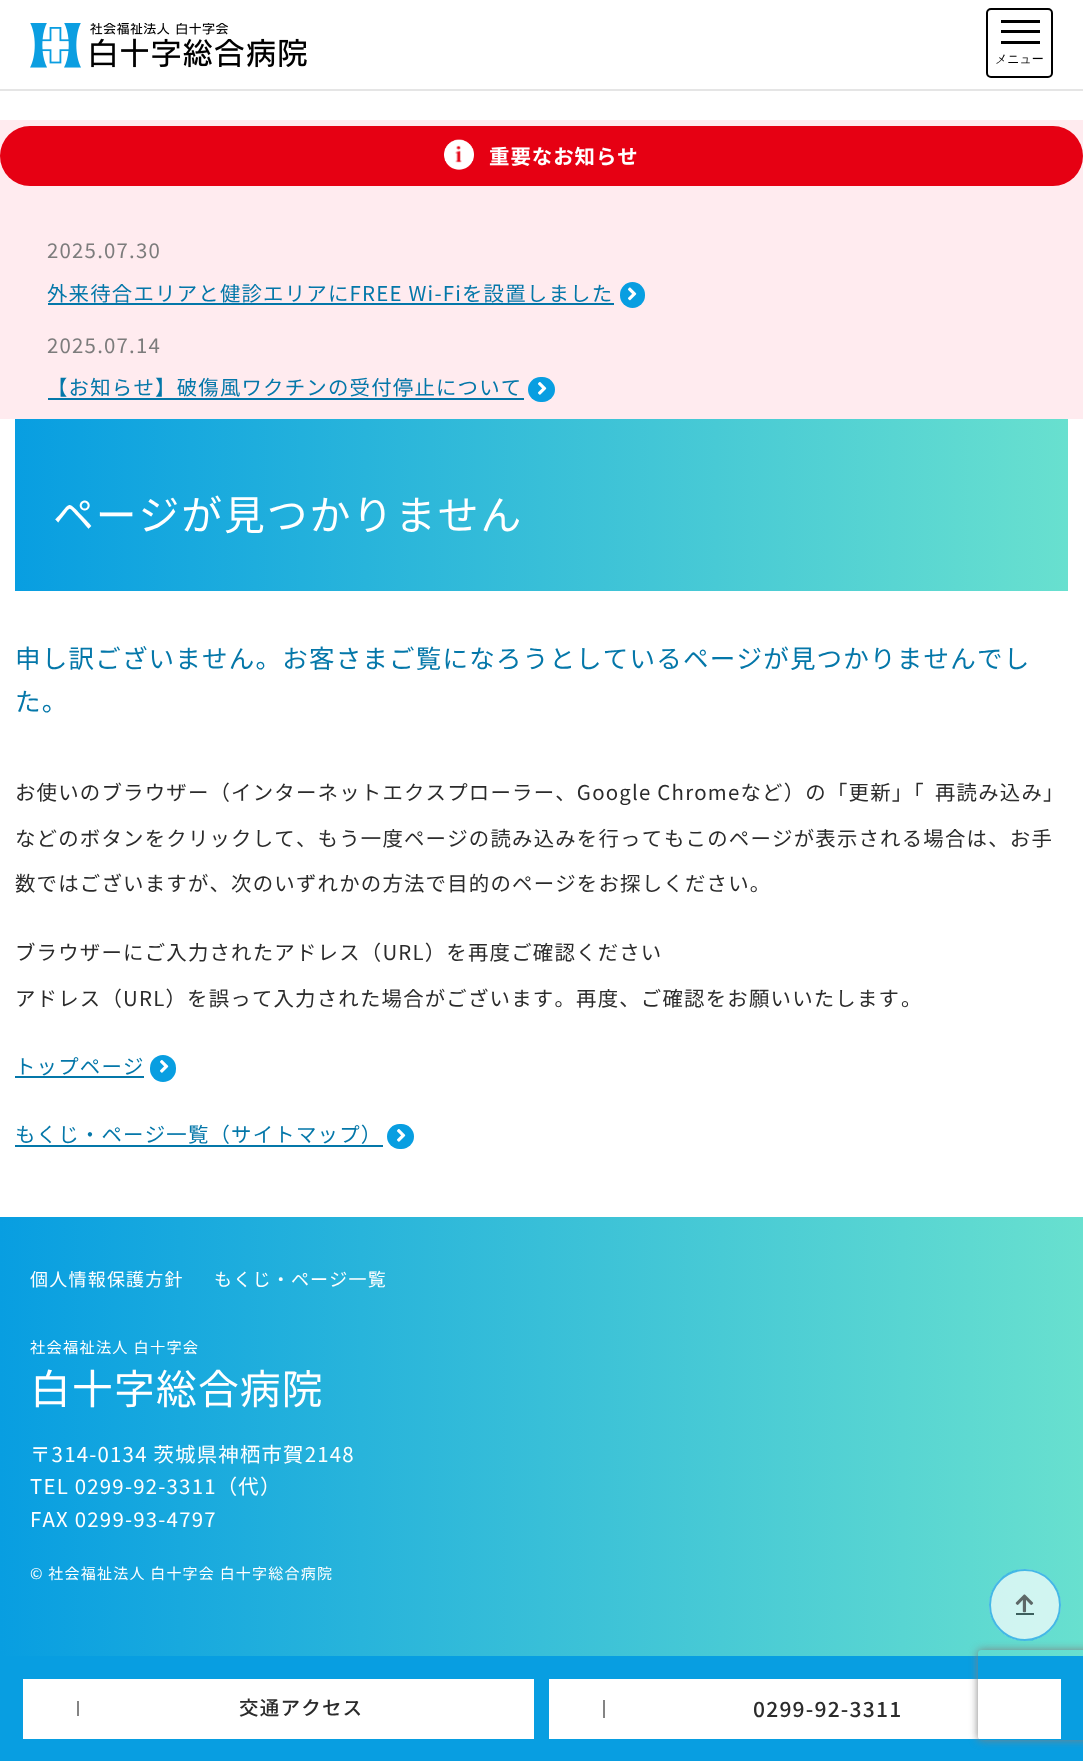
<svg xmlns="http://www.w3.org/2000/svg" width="1083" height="1761">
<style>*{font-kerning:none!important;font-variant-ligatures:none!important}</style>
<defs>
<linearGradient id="g1" gradientUnits="userSpaceOnUse" x1="15" y1="505" x2="1068" y2="505"><stop offset="0" stop-color="#089ee1"/><stop offset="1" stop-color="#68e0cf"/></linearGradient>
<linearGradient id="g2" gradientUnits="userSpaceOnUse" x1="0" y1="1474" x2="1083" y2="1474"><stop offset="0" stop-color="#089ee1"/><stop offset="1" stop-color="#68e0cf"/></linearGradient>
<clipPath id="clip1"><path d="M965 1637h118v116h-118zm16 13h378c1.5 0 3 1.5 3 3v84c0 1.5-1.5 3-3 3h-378c-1.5 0-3-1.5-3-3v-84c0-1.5 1.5-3 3-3z" clip-rule="evenodd"/></clipPath>
</defs>
<rect width="100%" height="100%" fill="#fff"/>
<rect y="89" width="1083" height="2" fill="#e5e5e5"/>
<image x="30" y="23" width="277" height="45" href="media/1.png"/>
<rect x="987" y="9" width="65" height="68" rx="4" fill="none" stroke="#000" stroke-width="2"/>
<rect x="1001" y="20" width="39" height="3" fill="#000"/>
<rect x="1001" y="30" width="39" height="3" fill="#000"/>
<rect x="1001" y="41" width="39" height="3" fill="#000"/>
<text x="995" y="63" style="font-family:WenQuanYi Zen Hei;font-size:12px;font-weight:500;fill:#000">メニュー</text>
<rect y="120" width="1083" height="299" fill="#ffebef"/>
<rect y="126" width="1083" height="60" rx="30" fill="#e60013"/>
<image x="444" y="139" width="30" height="31" href="media/2.png"/>
<text x="489" y="164" style="font-family:Noto Sans JP;font-size:20.4px;font-weight:bold;letter-spacing:1px;fill:#fff">重要なお知らせ</text>
<text x="47" y="258" style="font-family:Noto Sans JP;font-size:20.4px;letter-spacing:1.22px;fill:#7c7c7c">2025.07.30</text>
<text x="47" y="301" style="font-family:Noto Sans JP;font-size:20.4px;letter-spacing:1.22px;fill:#0477a9">外来待合エリアと健診エリアにFREE Wi-Fiを設置しました</text>
<rect x="48" y="303" width="566" height="2" fill="#0477a9"/>
<rect x="620" y="282" width="25" height="26" rx="12.5" fill="#089ee1"/>
<image x="628" y="287" width="9" height="14" href="media/3.png"/>
<text x="47" y="353" style="font-family:Noto Sans JP;font-size:20.4px;letter-spacing:1.22px;fill:#7c7c7c">2025.07.14</text>
<text x="47" y="395" style="font-family:Noto Sans JP;font-size:20.4px;letter-spacing:1.22px;fill:#0477a9">【お知らせ】破傷風ワクチンの受付停止について</text>
<rect x="48" y="398" width="476" height="2" fill="#0477a9"/>
<rect x="528" y="377" width="27" height="25" rx="12.5" fill="#089ee1"/>
<image x="538" y="382" width="9" height="13" href="media/4.png"/>
<rect x="15" y="419" width="1053" height="172" fill="url(#g1)"/>
<text x="53" y="530" style="font-family:Noto Sans JP;font-size:40.75px;letter-spacing:2px;fill:#fff">ページが見つかりません</text>
<text x="15" y="668" style="font-family:Noto Sans JP;font-size:25.5px;letter-spacing:1.22px;fill:#0477a9">申し訳ございません。お客さまご覧になろうとしているページが見つかりませんでし</text>
<text x="15" y="711" style="font-family:Noto Sans JP;font-size:25.5px;letter-spacing:1.22px;fill:#0477a9">た。</text>
<text x="15" y="800" style="font-family:Noto Sans JP;font-size:20.4px;letter-spacing:1.22px;fill:#2b2b2b">お使いのブラウザー（インターネットエクスプローラー、Google Chromeなど）の「更新」「</text>
<text x="935" y="800" style="font-family:Noto Sans JP;font-size:20.4px;letter-spacing:1.22px;fill:#2b2b2b">再読み込み」</text>
<text x="15" y="846" style="font-family:Noto Sans JP;font-size:20.4px;letter-spacing:1.22px;fill:#2b2b2b">などのボタンをクリックして、もう一度ページの読み込みを行って</text>
<text x="664" y="846" style="font-family:Noto Sans JP;font-size:20.4px;letter-spacing:1.22px;fill:#2b2b2b">もこのページが表示される場合は、お手</text>
<text x="15" y="891" style="font-family:Noto Sans JP;font-size:20.4px;letter-spacing:1.22px;fill:#2b2b2b">数ではございますが、次のいずれかの方法で目的のページをお探しください。</text>
<text x="15" y="960" style="font-family:Noto Sans JP;font-size:20.4px;letter-spacing:1.22px;fill:#2b2b2b">ブラウザーにご入力されたアドレス（URL）を再度ご確認ください</text>
<text x="15" y="1006" style="font-family:Noto Sans JP;font-size:20.4px;letter-spacing:1.22px;fill:#2b2b2b">アドレス（URL）を誤って入力された場合がございます。再度、ご確認をお願いいたします</text>
<text x="901" y="1006" style="font-family:Noto Sans JP;font-size:20.4px;letter-spacing:1.22px;fill:#2b2b2b">。</text>
<text x="15" y="1074" style="font-family:Noto Sans JP;font-size:20.4px;letter-spacing:1.22px;fill:#0477a9">トップページ</text>
<rect x="15" y="1076" width="129" height="2" fill="#0477a9"/>
<rect x="150" y="1055" width="26" height="27" rx="13" fill="#089ee1"/>
<image x="160" y="1060" width="9" height="13" href="media/4.png"/>
<text x="15" y="1142" style="font-family:Noto Sans JP;font-size:20.4px;letter-spacing:1.22px;fill:#0477a9">もくじ・ページ一覧（サイトマップ）</text>
<rect x="15" y="1145" width="368" height="2" fill="#0477a9"/>
<rect x="387" y="1124" width="27" height="25" rx="12.5" fill="#089ee1"/>
<image x="397" y="1129" width="9" height="13" href="media/4.png"/>
<rect y="1217" width="1083" height="439" fill="url(#g2)"/>
<text x="30" y="1286" style="font-family:Noto Sans JP;font-size:18px;letter-spacing:1.22px;fill:#fff">個人情報保護方針</text>
<text x="214" y="1286" style="font-family:Noto Sans JP;font-size:18px;letter-spacing:1.22px;fill:#fff">もくじ・ページ一覧</text>
<text x="30" y="1353" style="font-family:Noto Sans JP;font-size:15.25px;letter-spacing:1.22px;fill:#fff">社会福祉法人 白十字会</text>
<text x="30" y="1404" style="font-family:Noto Sans JP;font-size:40.75px;letter-spacing:1.22px;fill:#fff">白十字総合病院</text>
<text x="30" y="1462" style="font-family:Noto Sans JP;font-size:20.4px;letter-spacing:1.22px;fill:#fff">〒314-0134 茨城県神栖市賀2148</text>
<text x="30" y="1494" style="font-family:Noto Sans JP;font-size:20.4px;letter-spacing:1.22px;fill:#fff">TEL 0299-92-3311（代）</text>
<text x="30" y="1527" style="font-family:Noto Sans JP;font-size:20.4px;letter-spacing:1.22px;fill:#fff">FAX 0299-93-4797</text>
<text x="30" y="1579" style="font-family:Noto Sans JP;font-size:15px;letter-spacing:1.22px;fill:#fff">© 社会福祉法人 白十字会 白十字総合病院</text>
<circle cx="1025" cy="1605" r="36" fill="#ffffffb3"/>
<circle cx="1025" cy="1605" r="35" fill="none" stroke="#089ee1b3" stroke-width="2"/>
<image x="1015" y="1594" width="19" height="19" href="media/5.png"/>
<rect x="1016" y="1613" width="18" height="2" fill="#3c605d"/>
<rect y="1656" width="1083" height="105" fill="#089ee1"/>
<rect x="23" y="1679" width="511" height="60" fill="#fff"/>
<rect x="77" y="1701" width="2" height="15" fill="#848484"/>
<text x="239" y="1715" style="font-family:Noto Sans JP;font-size:19.5px;font-weight:500;letter-spacing:1.22px;fill:#2b2b2b">交通アクセス</text>
<rect x="549" y="1679" width="512" height="60" fill="#fff"/>
<rect x="603" y="1700" width="2" height="18" fill="#848484"/>
<text x="753" y="1717" style="font-family:Noto Sans JP;font-size:21px;font-weight:500;letter-spacing:1.22px;fill:#2b2b2b">0299-92-3311</text>
<g clip-path="url(#clip1)">
<rect x="978" y="1650" width="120" height="90" rx="3" fill="#808080" filter="blur(4px)"/>
</g>
</svg>
